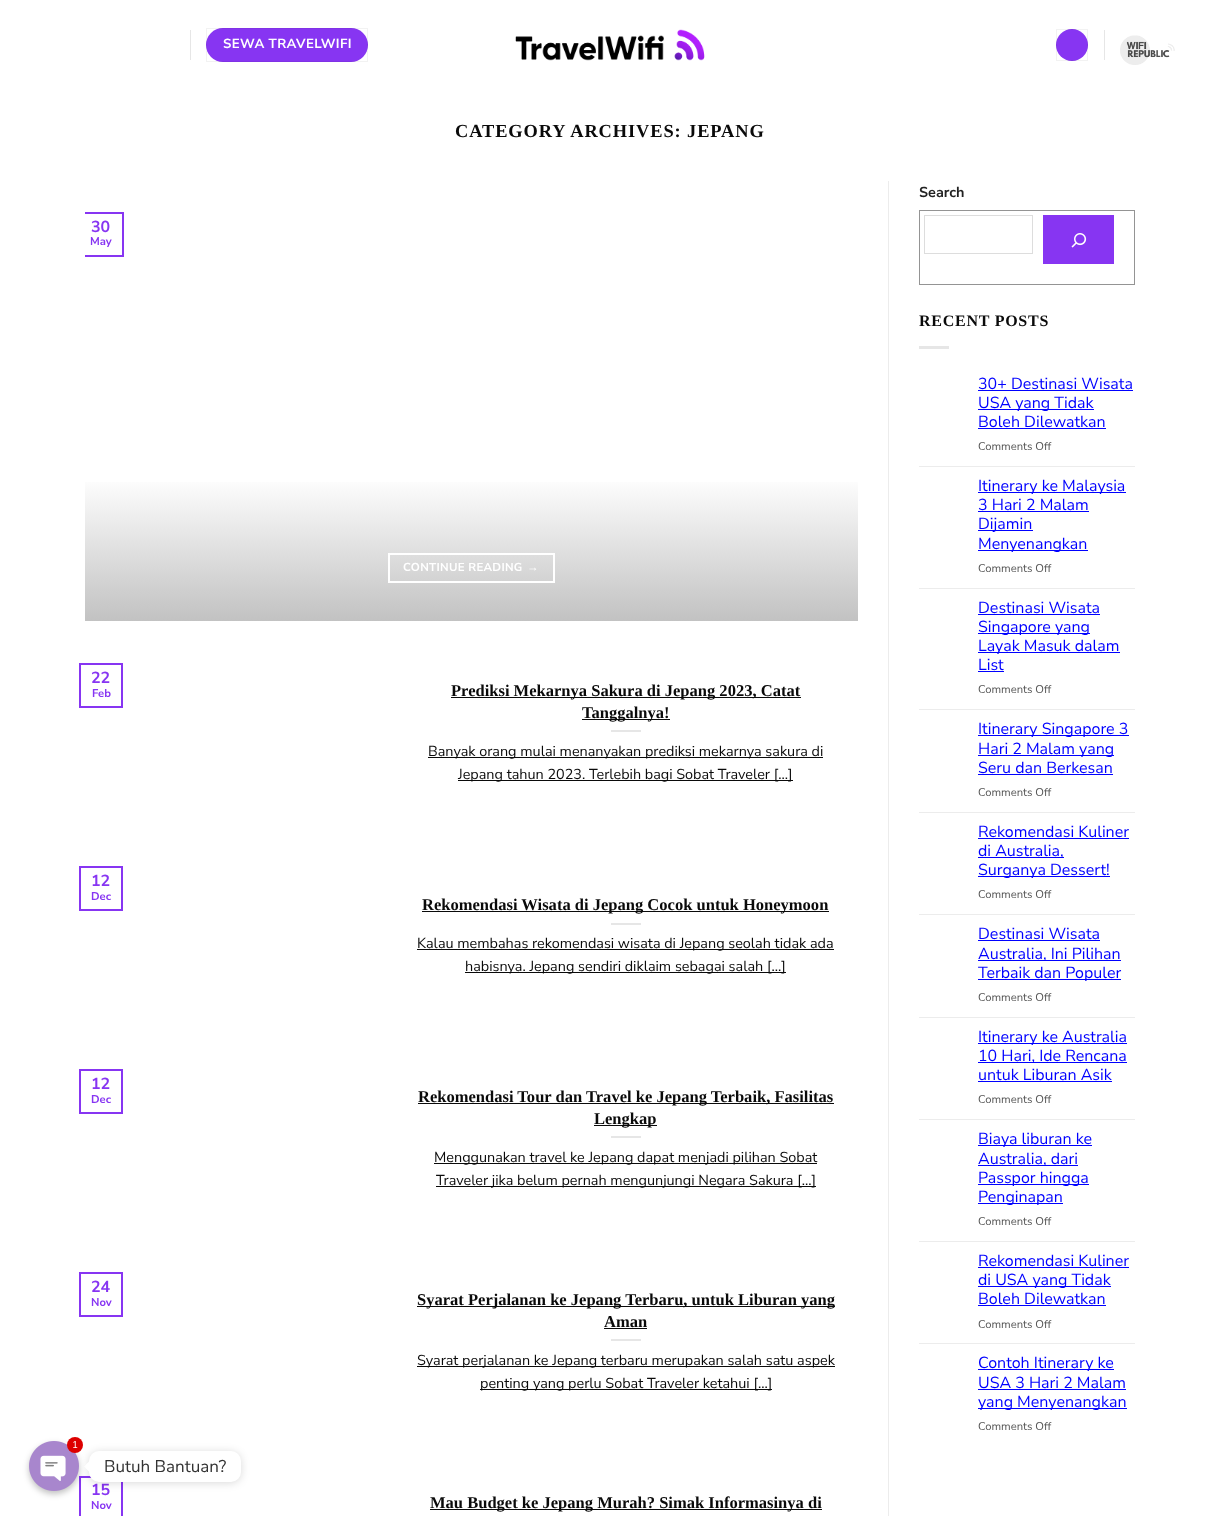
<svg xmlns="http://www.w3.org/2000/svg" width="1220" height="1516">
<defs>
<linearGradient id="g1" gradientUnits="userSpaceOnUse" x1="-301" y1="621" x2="-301" y2="181"><stop offset="0" stop-color="#c2c2c2"/><stop offset="0.33" stop-color="#fff"/></linearGradient>
<clipPath id="clip1"><rect x="85" y="181" width="773" height="440"/></clipPath>
<linearGradient id="g2" gradientUnits="userSpaceOnUse" x1="472" y1="621" x2="472" y2="181"><stop offset="0" stop-color="#c2c2c2"/><stop offset="0.33" stop-color="#fff"/></linearGradient>
</defs>
<rect width="100%" height="100%" fill="#fff"/>
<rect x="190" y="30" width="1" height="30" fill="#e6e6e6"/>
<rect x="206" y="28" width="162" height="34" rx="17" fill="#8735f2"/>
<rect x="206.5" y="28.5" width="161" height="33" fill="none" stroke="#0000000d"/>
<text x="223" y="48" style="font-family:Nunito Sans;font-size:13.25px;font-weight:bold;letter-spacing:0.4px;fill:#fff">SEWA TRAVELWIFI</text>
<image x="515" y="29" width="190" height="32" href="media/1.png"/>
<circle cx="1072" cy="45" r="16" fill="#8735f2"/>
<rect x="1056.5" y="29.5" width="31" height="31" fill="none" stroke="#0000000d"/>
<rect x="1104" y="30" width="1" height="30" fill="#e6e6e6"/>
<image x="1120" y="35" width="55" height="30" href="media/2.png"/>
<text x="455" y="137" style="font-family:Liberation Serif;font-size:18.4px;font-weight:bold;letter-spacing:0.9px;fill:#0a0a0a">CATEGORY ARCHIVES: JEPANG</text>
<rect x="85" y="482" width="1" height="139" fill="url(#g1)"/>
<g clip-path="url(#clip1)">
<rect x="80" y="213" width="43" height="43" fill="none" stroke="#8735f2" stroke-width="2"/>
</g>
<text x="91" y="232" style="font-family:Nunito Sans;font-size:16px;font-weight:bold;fill:#8735f2">30</text>
<text x="90" y="245" style="font-family:Nunito Sans;font-size:11.25px;font-weight:bold;fill:#8735f2">May</text>
<rect x="86" y="482" width="772" height="139" fill="url(#g2)"/>
<rect x="389" y="554" width="165" height="28" fill="none" stroke="#fff" stroke-width="2"/>
<text x="403" y="571" style="font-family:Nunito Sans;font-size:11.5px;font-weight:bold;letter-spacing:0.3px;fill:#fff">CONTINUE READING</text>
<text x="527" y="571" style="font-family:Liberation Sans;font-size:11.5px;font-weight:bold;letter-spacing:0.3px;fill:#fff">→</text>
<rect x="80" y="664" width="42" height="43" fill="none" stroke="#8735f2" stroke-width="2"/>
<text x="91" y="683" style="font-family:Nunito Sans;font-size:16px;font-weight:bold;fill:#8735f2">22</text>
<text x="92" y="697" style="font-family:Nunito Sans;font-size:11.25px;font-weight:bold;fill:#8735f2">Feb</text>
<rect x="451" y="697" width="350" height="1" fill="#0a0a0a"/>
<text x="451" y="696" style="font-family:Liberation Serif;font-size:16.55px;font-weight:bold;fill:#0a0a0a">Prediksi Mekarnya Sakura di Jepang 2023, Catat</text>
<rect x="582" y="719" width="88" height="1" fill="#0a0a0a"/>
<text x="582" y="718" style="font-family:Liberation Serif;font-size:16.55px;font-weight:bold;fill:#0a0a0a">Tanggalnya!</text>
<rect x="611" y="730" width="30" height="2" fill="#e6e6e6"/>
<rect x="428" y="757" width="395" height="1" fill="#0a0a0a"/>
<text x="428" y="756" style="font-family:Nunito Sans;font-size:14.4px;font-weight:200;fill:#0a0a0a">Banyak orang mulai menanyakan prediksi mekarnya sakura di</text>
<rect x="458" y="780" width="335" height="1" fill="#0a0a0a"/>
<text x="458" y="779" style="font-family:Nunito Sans;font-size:14.4px;font-weight:200;fill:#0a0a0a">Jepang tahun 2023. Terlebih bagi Sobat Traveler [...]</text>
<rect x="80" y="867" width="42" height="43" fill="none" stroke="#8735f2" stroke-width="2"/>
<text x="91" y="886" style="font-family:Nunito Sans;font-size:16px;font-weight:bold;fill:#8735f2">12</text>
<text x="91" y="900" style="font-family:Nunito Sans;font-size:11.25px;font-weight:bold;fill:#8735f2">Dec</text>
<rect x="422" y="911" width="407" height="1" fill="#0a0a0a"/>
<text x="422" y="910" style="font-family:Liberation Serif;font-size:16.55px;font-weight:bold;fill:#0a0a0a">Rekomendasi Wisata di Jepang Cocok untuk Honeymoon</text>
<rect x="611" y="923" width="30" height="2" fill="#e6e6e6"/>
<rect x="417" y="949" width="417" height="1" fill="#0a0a0a"/>
<text x="417" y="948" style="font-family:Nunito Sans;font-size:14.4px;font-weight:200;fill:#0a0a0a">Kalau membahas rekomendasi wisata di Jepang seolah tidak ada</text>
<rect x="465" y="972" width="321" height="1" fill="#0a0a0a"/>
<text x="465" y="971" style="font-family:Nunito Sans;font-size:14.4px;font-weight:200;fill:#0a0a0a">habisnya. Jepang sendiri diklaim sebagai salah [...]</text>
<rect x="80" y="1070" width="42" height="43" fill="none" stroke="#8735f2" stroke-width="2"/>
<text x="91" y="1089" style="font-family:Nunito Sans;font-size:16px;font-weight:bold;fill:#8735f2">12</text>
<text x="91" y="1103" style="font-family:Nunito Sans;font-size:11.25px;font-weight:bold;fill:#8735f2">Dec</text>
<rect x="418" y="1103" width="416" height="1" fill="#0a0a0a"/>
<text x="418" y="1102" style="font-family:Liberation Serif;font-size:16.55px;font-weight:bold;fill:#0a0a0a">Rekomendasi Tour dan Travel ke Jepang Terbaik, Fasilitas</text>
<rect x="594" y="1125" width="63" height="1" fill="#0a0a0a"/>
<text x="594" y="1124" style="font-family:Liberation Serif;font-size:16.55px;font-weight:bold;fill:#0a0a0a">Lengkap</text>
<rect x="611" y="1136" width="30" height="2" fill="#e6e6e6"/>
<rect x="434" y="1163" width="383" height="1" fill="#0a0a0a"/>
<text x="434" y="1162" style="font-family:Nunito Sans;font-size:14.4px;font-weight:200;fill:#0a0a0a">Menggunakan travel ke Jepang dapat menjadi pilihan Sobat</text>
<rect x="436" y="1186" width="380" height="1" fill="#0a0a0a"/>
<text x="436" y="1185" style="font-family:Nunito Sans;font-size:14.4px;font-weight:200;fill:#0a0a0a">Traveler jika belum pernah mengunjungi Negara Sakura [...]</text>
<rect x="80" y="1273" width="42" height="43" fill="none" stroke="#8735f2" stroke-width="2"/>
<text x="91" y="1292" style="font-family:Nunito Sans;font-size:16px;font-weight:bold;fill:#8735f2">24</text>
<text x="91" y="1306" style="font-family:Nunito Sans;font-size:11.25px;font-weight:bold;fill:#8735f2">Nov</text>
<rect x="417" y="1306" width="418" height="1" fill="#0a0a0a"/>
<text x="417" y="1305" style="font-family:Liberation Serif;font-size:16.55px;font-weight:bold;fill:#0a0a0a">Syarat Perjalanan ke Jepang Terbaru, untuk Liburan yang</text>
<text x="604" y="1327" style="font-family:Liberation Serif;font-size:16.55px;font-weight:bold;fill:#0a0a0a">Aman</text>
<rect x="604" y="1328" width="43" height="1" fill="#0a0a0a"/>
<rect x="611" y="1339" width="30" height="2" fill="#e6e6e6"/>
<rect x="417" y="1366" width="418" height="1" fill="#0a0a0a"/>
<text x="417" y="1365" style="font-family:Nunito Sans;font-size:14.4px;font-weight:200;fill:#0a0a0a">Syarat perjalanan ke Jepang terbaru merupakan salah satu aspek</text>
<rect x="480" y="1389" width="292" height="1" fill="#0a0a0a"/>
<text x="480" y="1388" style="font-family:Nunito Sans;font-size:14.4px;font-weight:200;fill:#0a0a0a">penting yang perlu Sobat Traveler ketahui [...]</text>
<rect x="80" y="1477" width="42" height="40" fill="none" stroke="#8735f2" stroke-width="2"/>
<text x="91" y="1495" style="font-family:Nunito Sans;font-size:16px;font-weight:bold;fill:#8735f2">15</text>
<text x="91" y="1509" style="font-family:Nunito Sans;font-size:11.25px;font-weight:bold;fill:#8735f2">Nov</text>
<rect x="430" y="1509" width="392" height="1" fill="#0a0a0a"/>
<text x="430" y="1508" style="font-family:Liberation Serif;font-size:16.55px;font-weight:bold;fill:#0a0a0a">Mau Budget ke Jepang Murah? Simak Informasinya di</text>
<rect x="888" y="181" width="1" height="1335" fill="#ececec"/>
<text x="919" y="197" style="font-family:Nunito Sans;font-size:14.4px;font-weight:bold;fill:#222">Search</text>
<rect x="919.5" y="210.5" width="215" height="74" fill="none" stroke="#949494"/>
<rect x="924.5" y="215.5" width="108" height="38" fill="none" stroke="#ddd"/>
<rect x="1043" y="215" width="71" height="49" fill="#8735f2"/>
<image x="1071" y="233" width="16" height="15" href="media/3.png"/>
<text x="919" y="326" style="font-family:Liberation Serif;font-size:16px;font-weight:bold;letter-spacing:0.75px;fill:#0a0a0a">RECENT POSTS</text>
<rect x="919" y="346" width="30" height="3" fill="#e6e6e6"/>
<text x="978" y="389" style="font-family:Nunito Sans;font-size:16px;font-weight:200;fill:#00f">30+ Destinasi Wisata</text>
<rect x="978" y="390" width="155" height="1" fill="#00f"/>
<rect x="978" y="409" width="116" height="1" fill="#00f"/>
<text x="978" y="408" style="font-family:Nunito Sans;font-size:16px;font-weight:200;fill:#00f">USA yang Tidak</text>
<text x="978" y="427" style="font-family:Nunito Sans;font-size:16px;font-weight:200;fill:#00f">Boleh Dilewatkan</text>
<rect x="978" y="428" width="128" height="1" fill="#00f"/>
<text x="978" y="450" style="font-family:Nunito Sans;font-size:11.25px;font-weight:200;fill:#545454">Comments Off</text>
<rect x="919" y="466" width="216" height="1" fill="#ececec"/>
<rect x="978" y="492" width="148" height="1" fill="#00f"/>
<text x="978" y="491" style="font-family:Nunito Sans;font-size:16px;font-weight:200;fill:#00f">Itinerary ke Malaysia</text>
<text x="978" y="510" style="font-family:Nunito Sans;font-size:16px;font-weight:200;fill:#00f">3 Hari 2 Malam</text>
<rect x="978" y="511" width="111" height="1" fill="#00f"/>
<rect x="978" y="530" width="55" height="1" fill="#00f"/>
<text x="978" y="529" style="font-family:Nunito Sans;font-size:16px;font-weight:200;fill:#00f">Dijamin</text>
<rect x="978" y="550" width="110" height="1" fill="#00f"/>
<text x="978" y="549" style="font-family:Nunito Sans;font-size:16px;font-weight:200;fill:#00f">Menyenangkan</text>
<text x="978" y="572" style="font-family:Nunito Sans;font-size:11.25px;font-weight:200;fill:#545454">Comments Off</text>
<rect x="919" y="588" width="216" height="1" fill="#ececec"/>
<text x="978" y="613" style="font-family:Nunito Sans;font-size:16px;font-weight:200;fill:#00f">Destinasi Wisata</text>
<rect x="978" y="614" width="122" height="1" fill="#00f"/>
<rect x="978" y="633" width="112" height="1" fill="#00f"/>
<text x="978" y="632" style="font-family:Nunito Sans;font-size:16px;font-weight:200;fill:#00f">Singapore yang</text>
<rect x="978" y="652" width="142" height="1" fill="#00f"/>
<text x="978" y="651" style="font-family:Nunito Sans;font-size:16px;font-weight:200;fill:#00f">Layak Masuk dalam</text>
<text x="978" y="670" style="font-family:Nunito Sans;font-size:16px;font-weight:200;fill:#00f">List</text>
<rect x="978" y="671" width="26" height="1" fill="#00f"/>
<text x="978" y="693" style="font-family:Nunito Sans;font-size:11.25px;font-weight:200;fill:#545454">Comments Off</text>
<rect x="919" y="709" width="216" height="1" fill="#ececec"/>
<rect x="978" y="735" width="151" height="1" fill="#00f"/>
<text x="978" y="734" style="font-family:Nunito Sans;font-size:16px;font-weight:200;fill:#00f">Itinerary Singapore 3</text>
<rect x="978" y="755" width="136" height="1" fill="#00f"/>
<text x="978" y="754" style="font-family:Nunito Sans;font-size:16px;font-weight:200;fill:#00f">Hari 2 Malam yang</text>
<text x="978" y="773" style="font-family:Nunito Sans;font-size:16px;font-weight:200;fill:#00f">Seru dan Berkesan</text>
<rect x="978" y="774" width="135" height="1" fill="#00f"/>
<text x="978" y="796" style="font-family:Nunito Sans;font-size:11.25px;font-weight:200;fill:#545454">Comments Off</text>
<rect x="919" y="812" width="216" height="1" fill="#ececec"/>
<text x="978" y="837" style="font-family:Nunito Sans;font-size:16px;font-weight:200;fill:#00f">Rekomendasi Kuliner</text>
<rect x="978" y="838" width="151" height="1" fill="#00f"/>
<rect x="978" y="857" width="86" height="1" fill="#00f"/>
<text x="978" y="856" style="font-family:Nunito Sans;font-size:16px;font-weight:200;fill:#00f">di Australia,</text>
<rect x="978" y="876" width="132" height="1" fill="#00f"/>
<text x="978" y="875" style="font-family:Nunito Sans;font-size:16px;font-weight:200;fill:#00f">Surganya Dessert!</text>
<text x="978" y="898" style="font-family:Nunito Sans;font-size:11.25px;font-weight:200;fill:#545454">Comments Off</text>
<rect x="919" y="914" width="216" height="1" fill="#ececec"/>
<text x="978" y="939" style="font-family:Nunito Sans;font-size:16px;font-weight:200;fill:#00f">Destinasi Wisata</text>
<rect x="978" y="940" width="122" height="1" fill="#00f"/>
<rect x="978" y="960" width="143" height="1" fill="#00f"/>
<text x="978" y="959" style="font-family:Nunito Sans;font-size:16px;font-weight:200;fill:#00f">Australia, Ini Pilihan</text>
<rect x="978" y="979" width="143" height="1" fill="#00f"/>
<text x="978" y="978" style="font-family:Nunito Sans;font-size:16px;font-weight:200;fill:#00f">Terbaik dan Populer</text>
<text x="978" y="1001" style="font-family:Nunito Sans;font-size:11.25px;font-weight:200;fill:#545454">Comments Off</text>
<rect x="919" y="1017" width="216" height="1" fill="#ececec"/>
<rect x="978" y="1043" width="149" height="1" fill="#00f"/>
<text x="978" y="1042" style="font-family:Nunito Sans;font-size:16px;font-weight:200;fill:#00f">Itinerary ke Australia</text>
<rect x="978" y="1062" width="149" height="1" fill="#00f"/>
<text x="978" y="1061" style="font-family:Nunito Sans;font-size:16px;font-weight:200;fill:#00f">10 Hari, Ide Rencana</text>
<text x="978" y="1080" style="font-family:Nunito Sans;font-size:16px;font-weight:200;fill:#00f">untuk Liburan Asik</text>
<rect x="978" y="1081" width="134" height="1" fill="#00f"/>
<text x="978" y="1103" style="font-family:Nunito Sans;font-size:11.25px;font-weight:200;fill:#545454">Comments Off</text>
<rect x="919" y="1119" width="216" height="1" fill="#ececec"/>
<rect x="978" y="1145" width="114" height="1" fill="#00f"/>
<text x="978" y="1144" style="font-family:Nunito Sans;font-size:16px;font-weight:200;fill:#00f">Biaya liburan ke</text>
<rect x="978" y="1165" width="100" height="1" fill="#00f"/>
<text x="978" y="1164" style="font-family:Nunito Sans;font-size:16px;font-weight:200;fill:#00f">Australia, dari</text>
<rect x="978" y="1184" width="111" height="1" fill="#00f"/>
<text x="978" y="1183" style="font-family:Nunito Sans;font-size:16px;font-weight:200;fill:#00f">Passpor hingga</text>
<rect x="978" y="1203" width="85" height="1" fill="#00f"/>
<text x="978" y="1202" style="font-family:Nunito Sans;font-size:16px;font-weight:200;fill:#00f">Penginapan</text>
<text x="978" y="1225" style="font-family:Nunito Sans;font-size:11.25px;font-weight:200;fill:#545454">Comments Off</text>
<rect x="919" y="1241" width="216" height="1" fill="#ececec"/>
<text x="978" y="1266" style="font-family:Nunito Sans;font-size:16px;font-weight:200;fill:#00f">Rekomendasi Kuliner</text>
<rect x="978" y="1267" width="151" height="1" fill="#00f"/>
<rect x="978" y="1286" width="133" height="1" fill="#00f"/>
<text x="978" y="1285" style="font-family:Nunito Sans;font-size:16px;font-weight:200;fill:#00f">di USA yang Tidak</text>
<text x="978" y="1304" style="font-family:Nunito Sans;font-size:16px;font-weight:200;fill:#00f">Boleh Dilewatkan</text>
<rect x="978" y="1305" width="128" height="1" fill="#00f"/>
<text x="978" y="1328" style="font-family:Nunito Sans;font-size:11.25px;font-weight:200;fill:#545454">Comments Off</text>
<rect x="919" y="1343" width="216" height="1" fill="#ececec"/>
<rect x="978" y="1369" width="136" height="1" fill="#00f"/>
<text x="978" y="1368" style="font-family:Nunito Sans;font-size:16px;font-weight:200;fill:#00f">Contoh Itinerary ke</text>
<text x="978" y="1388" style="font-family:Nunito Sans;font-size:16px;font-weight:200;fill:#00f">USA 3 Hari 2 Malam</text>
<rect x="978" y="1389" width="148" height="1" fill="#00f"/>
<rect x="978" y="1408" width="149" height="1" fill="#00f"/>
<text x="978" y="1407" style="font-family:Nunito Sans;font-size:16px;font-weight:200;fill:#00f">yang Menyenangkan</text>
<text x="978" y="1430" style="font-family:Nunito Sans;font-size:11.25px;font-weight:200;fill:#545454">Comments Off</text>
<rect x="89" y="1452" width="152" height="31" rx="10" fill="#00000026" filter="blur(4px)"/>
<path d="M89 1461.5v10l-5-5z" fill="#fff"/>
<rect x="29" y="1444" width="50" height="50" rx="25" fill="#00000040" filter="blur(3px)"/>
<image x="29" y="1441" width="50" height="50" href="media/4.png"/>
<circle cx="75" cy="1445" r="8" fill="#d00"/>
<text x="72" y="1448" style="font-family:Nunito Sans;font-size:10px;font-weight:200;fill:#fff">1</text>
<rect x="89" y="1451" width="152" height="31" rx="10" fill="#fff"/>
<text x="104" y="1472" style="font-family:Nunito Sans;font-size:17px;font-weight:200;fill:#333">Butuh Bantuan?</text>
</svg>
